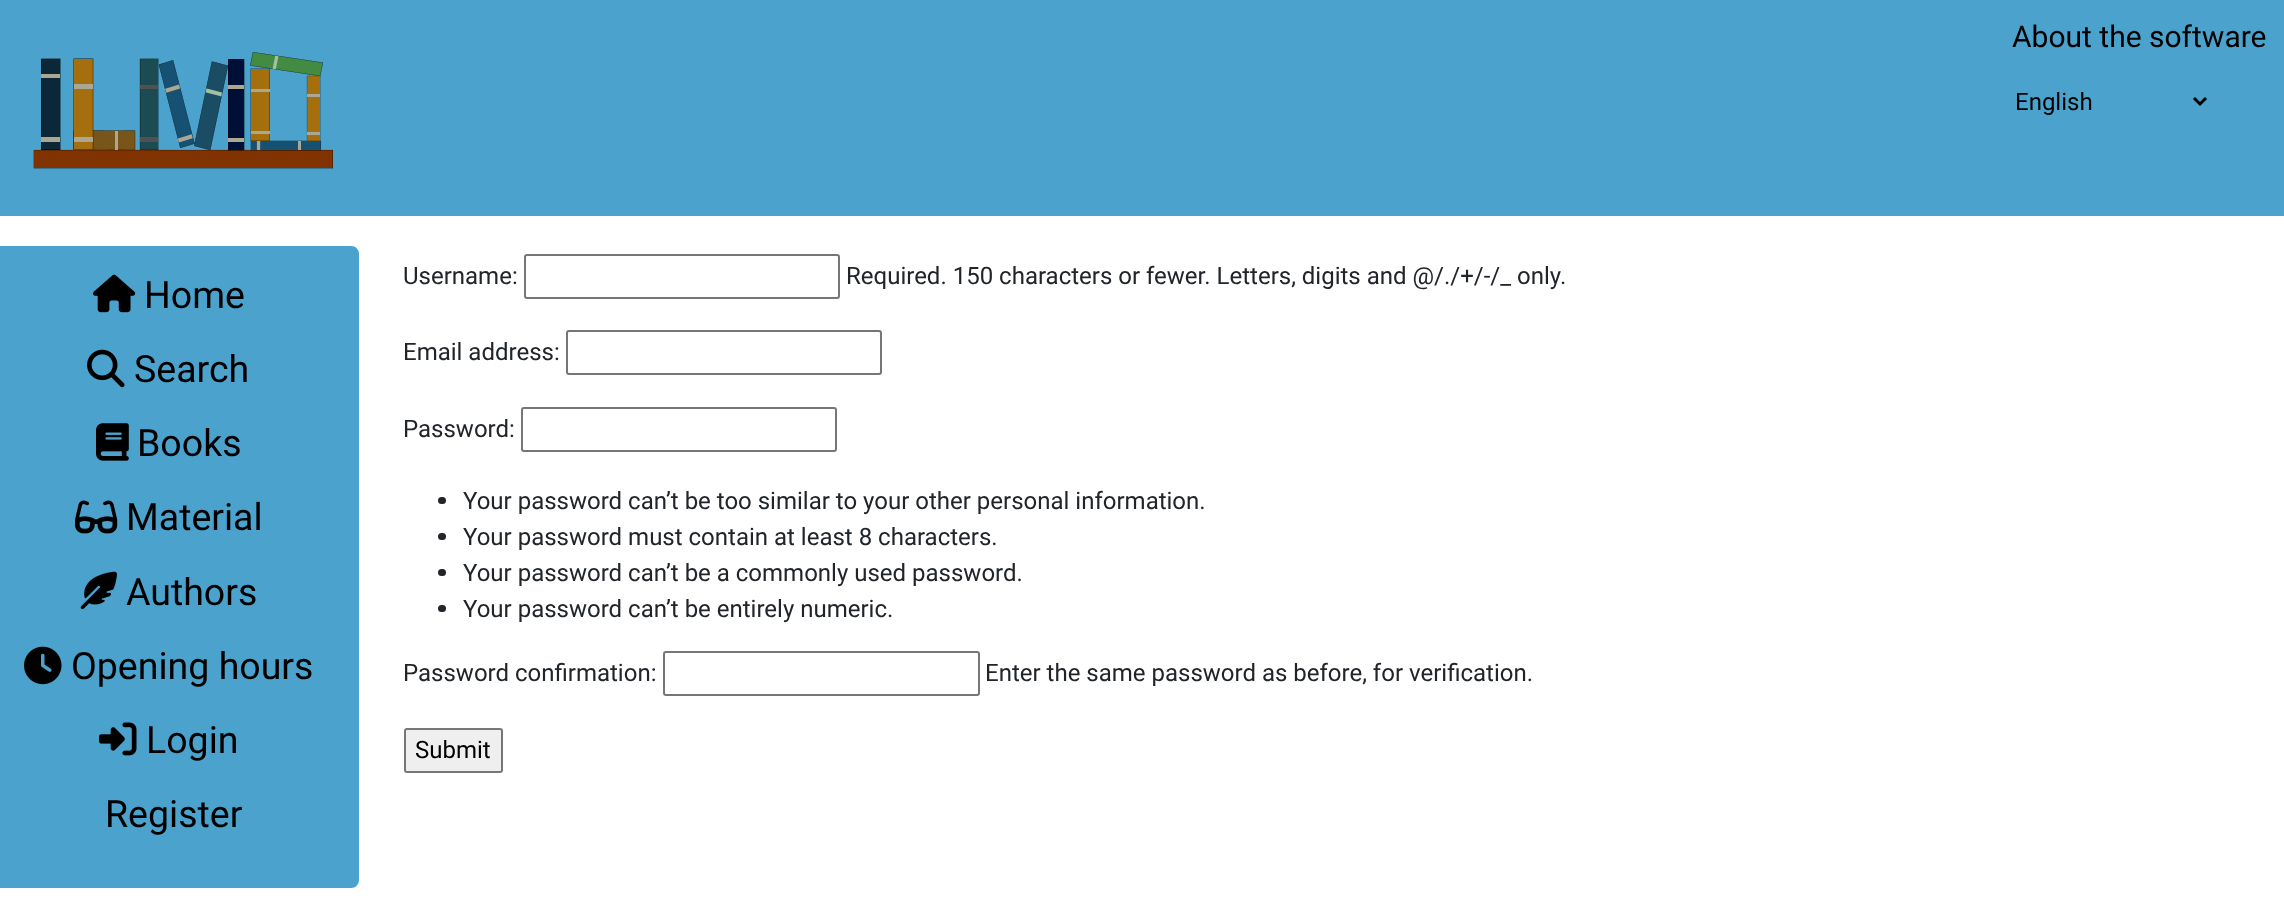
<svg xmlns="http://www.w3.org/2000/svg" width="2284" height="906">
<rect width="100%" height="100%" fill="#fff"/>
<rect width="2284" height="216" fill="#4ba3cd"/>
<image x="33" y="52" width="300" height="117" href="media/1.png"/>
<text x="2012" y="47" style="font-family:Roboto;font-size:30px;fill:#000">About the software</text>
<path d="M2194 98l6 6l6-6" fill="none" stroke="#000" stroke-width="3"/>
<text x="2015" y="110" style="font-family:Roboto;font-size:24px;fill:#000">English</text>
<path d="M0 246h351c4.5 0 8 3.5 8 8v626c0 4.5-3.5 8-8 8h-351z" fill="#4ba3cd"/>
<image x="93" y="274" width="43" height="39" href="media/2.png"/>
<text x="144" y="308" style="font-family:Roboto;font-size:37.5px;fill:#000">Home</text>
<image x="87" y="349" width="38" height="39" href="media/3.png"/>
<text x="134" y="382" style="font-family:Roboto;font-size:37.5px;fill:#000">Search</text>
<image x="96" y="423" width="33" height="38" href="media/4.png"/>
<text x="137" y="456" style="font-family:Roboto;font-size:37.5px;fill:#000">Books</text>
<image x="75" y="500" width="43" height="34" href="media/5.png"/>
<text x="126" y="530" style="font-family:Roboto;font-size:37.5px;fill:#000">Material</text>
<image x="80" y="571" width="37" height="39" href="media/6.png"/>
<text x="126" y="605" style="font-family:Roboto;font-size:37.5px;fill:#000">Authors</text>
<image x="24" y="646" width="38" height="39" href="media/7.png"/>
<text x="71" y="679" style="font-family:Roboto;font-size:37.5px;fill:#000">Opening hours</text>
<image x="99" y="722" width="38" height="34" href="media/8.png"/>
<text x="146" y="753" style="font-family:Roboto;font-size:37.5px;fill:#000">Login</text>
<text x="105" y="827" style="font-family:Roboto;font-size:37.5px;fill:#000">Register</text>
<text x="403" y="284" style="font-family:Roboto;font-size:24px;fill:#212529">Username:</text>
<rect x="525" y="255" width="314" height="43" rx="2" fill="none" stroke="#767676" stroke-width="2"/>
<text x="846" y="284" style="font-family:Roboto;font-size:24px;fill:#212529">Required. 150 characters or fewer. Letters, digits and @/./+/-/_ only.</text>
<text x="403" y="360" style="font-family:Roboto;font-size:24px;fill:#212529">Email address:</text>
<rect x="567" y="331" width="314" height="43" rx="2" fill="none" stroke="#767676" stroke-width="2"/>
<text x="403" y="437" style="font-family:Roboto;font-size:24px;fill:#212529">Password:</text>
<rect x="522" y="408" width="314" height="43" rx="2" fill="none" stroke="#767676" stroke-width="2"/>
<rect x="438" y="497" width="8" height="7" rx="3.5" fill="#212529"/>
<text x="463" y="509" style="font-family:Roboto;font-size:24px;fill:#212529">Your password can’t be too similar to your other personal information.</text>
<rect x="438" y="533" width="8" height="7" rx="3.5" fill="#212529"/>
<text x="463" y="545" style="font-family:Roboto;font-size:24px;fill:#212529">Your password must contain at least 8 characters.</text>
<rect x="438" y="569" width="8" height="7" rx="3.5" fill="#212529"/>
<text x="463" y="581" style="font-family:Roboto;font-size:24px;fill:#212529">Your password can’t be a commonly used password.</text>
<rect x="438" y="605" width="8" height="7" rx="3.5" fill="#212529"/>
<text x="463" y="617" style="font-family:Roboto;font-size:24px;fill:#212529">Your password can’t be entirely numeric.</text>
<text x="403" y="681" style="font-family:Roboto;font-size:24px;fill:#212529">Password confirmation:</text>
<rect x="664" y="652" width="315" height="43" rx="2" fill="none" stroke="#767676" stroke-width="2"/>
<text x="985" y="681" style="font-family:Roboto;font-size:24px;fill:#212529">Enter the same password as before, for verification.</text>
<rect x="405" y="729" width="97" height="43" rx="2" fill="#efefef" stroke="#767676" stroke-width="2"/>
<text x="415" y="758" style="font-family:Roboto;font-size:24px;fill:#000">Submit</text>
</svg>
